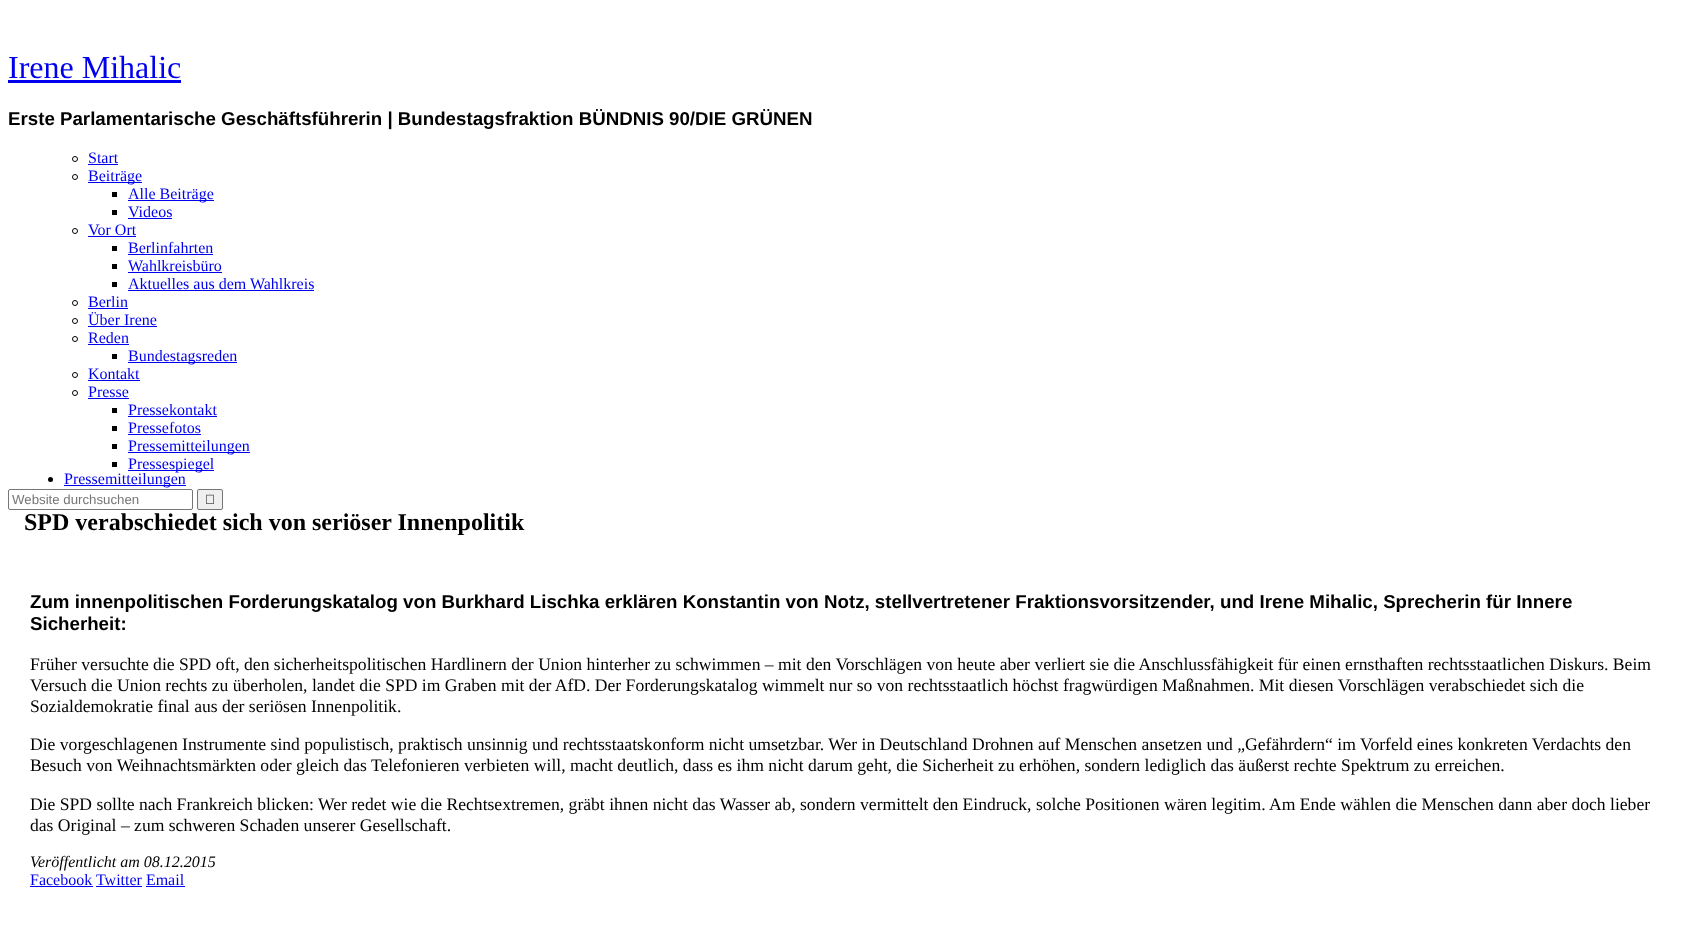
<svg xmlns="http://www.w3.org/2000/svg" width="1698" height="944">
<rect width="100%" height="100%" fill="#fff"/>
<text x="8" y="78" style="font-family:Liberation Serif;font-size:32px;fill:#00e">Irene Mihalic</text>
<rect x="8" y="80" width="173" height="3" fill="#00e"/>
<text x="8" y="125" style="font-family:Liberation Sans;font-size:18.72px;font-weight:bold;fill:#000">Erste Parlamentarische Geschäftsführerin | Bundestagsfraktion BÜNDNIS 90/DIE GRÜNEN</text>
<circle cx="75" cy="159" r="2.5" fill="none" stroke="#000"/>
<text x="88" y="163" style="font-family:Liberation Serif;font-size:16px;fill:#00e">Start</text>
<rect x="88" y="164" width="30" height="1" fill="#00e"/>
<circle cx="75" cy="177" r="2.5" fill="none" stroke="#000"/>
<rect x="88" y="182" width="54" height="1" fill="#00e"/>
<text x="88" y="181" style="font-family:Liberation Serif;font-size:16px;fill:#00e">Beiträge</text>
<rect x="112" y="192" width="5" height="5" fill="#000"/>
<rect x="128" y="200" width="86" height="1" fill="#00e"/>
<text x="128" y="199" style="font-family:Liberation Serif;font-size:16px;fill:#00e">Alle Beiträge</text>
<rect x="112" y="210" width="5" height="5" fill="#000"/>
<text x="128" y="217" style="font-family:Liberation Serif;font-size:16px;fill:#00e">Videos</text>
<rect x="128" y="218" width="44" height="1" fill="#00e"/>
<circle cx="75" cy="231" r="2.5" fill="none" stroke="#000"/>
<text x="88" y="235" style="font-family:Liberation Serif;font-size:16px;fill:#00e">Vor Ort</text>
<rect x="88" y="236" width="48" height="1" fill="#00e"/>
<rect x="112" y="246" width="5" height="5" fill="#000"/>
<text x="128" y="253" style="font-family:Liberation Serif;font-size:16px;fill:#00e">Berlinfahrten</text>
<rect x="128" y="254" width="85" height="1" fill="#00e"/>
<rect x="112" y="264" width="5" height="5" fill="#000"/>
<text x="128" y="271" style="font-family:Liberation Serif;font-size:16px;fill:#00e">Wahlkreisbüro</text>
<rect x="128" y="272" width="94" height="1" fill="#00e"/>
<rect x="112" y="282" width="5" height="5" fill="#000"/>
<text x="128" y="289" style="font-family:Liberation Serif;font-size:16px;fill:#00e">Aktuelles aus dem Wahlkreis</text>
<rect x="128" y="290" width="186" height="1" fill="#00e"/>
<circle cx="75" cy="303" r="2.5" fill="none" stroke="#000"/>
<text x="88" y="307" style="font-family:Liberation Serif;font-size:16px;fill:#00e">Berlin</text>
<rect x="88" y="308" width="40" height="1" fill="#00e"/>
<circle cx="75" cy="321" r="2.5" fill="none" stroke="#000"/>
<text x="88" y="325" style="font-family:Liberation Serif;font-size:16px;fill:#00e">Über Irene</text>
<rect x="88" y="326" width="69" height="1" fill="#00e"/>
<circle cx="75" cy="339" r="2.5" fill="none" stroke="#000"/>
<text x="88" y="343" style="font-family:Liberation Serif;font-size:16px;fill:#00e">Reden</text>
<rect x="88" y="344" width="41" height="1" fill="#00e"/>
<rect x="112" y="354" width="5" height="5" fill="#000"/>
<rect x="128" y="362" width="109" height="1" fill="#00e"/>
<text x="128" y="361" style="font-family:Liberation Serif;font-size:16px;fill:#00e">Bundestagsreden</text>
<circle cx="75" cy="375" r="2.5" fill="none" stroke="#000"/>
<text x="88" y="379" style="font-family:Liberation Serif;font-size:16px;fill:#00e">Kontakt</text>
<rect x="88" y="380" width="52" height="1" fill="#00e"/>
<circle cx="75" cy="393" r="2.5" fill="none" stroke="#000"/>
<text x="88" y="397" style="font-family:Liberation Serif;font-size:16px;fill:#00e">Presse</text>
<rect x="88" y="398" width="41" height="1" fill="#00e"/>
<rect x="112" y="408" width="5" height="5" fill="#000"/>
<text x="128" y="415" style="font-family:Liberation Serif;font-size:16px;fill:#00e">Pressekontakt</text>
<rect x="128" y="416" width="89" height="1" fill="#00e"/>
<rect x="112" y="426" width="5" height="5" fill="#000"/>
<text x="128" y="433" style="font-family:Liberation Serif;font-size:16px;fill:#00e">Pressefotos</text>
<rect x="128" y="434" width="73" height="1" fill="#00e"/>
<rect x="112" y="444" width="5" height="5" fill="#000"/>
<rect x="128" y="452" width="122" height="1" fill="#00e"/>
<text x="128" y="451" style="font-family:Liberation Serif;font-size:16px;fill:#00e">Pressemitteilungen</text>
<rect x="112" y="462" width="5" height="5" fill="#000"/>
<rect x="128" y="470" width="86" height="1" fill="#00e"/>
<text x="128" y="469" style="font-family:Liberation Serif;font-size:16px;fill:#00e">Pressespiegel</text>
<rect x="8.5" y="489.5" width="184" height="20" rx="1.5" fill="none" stroke="#767676"/>
<text x="12" y="504" style="font-family:Liberation Sans;font-size:13.25px;fill:#757575">Website durchsuchen</text>
<rect x="197.5" y="489.5" width="25" height="20" rx="1.5" fill="#efefef" stroke="#767676"/>
<image x="206" y="494" width="8" height="10" href="media/1.png"/>
<circle cx="50.5" cy="479.5" r="2.5" fill="#000"/>
<rect x="64" y="485" width="122" height="1" fill="#00e"/>
<text x="64" y="484" style="font-family:Liberation Serif;font-size:16px;fill:#00e">Pressemitteilungen</text>
<text x="24" y="530" style="font-family:Liberation Serif;font-size:24px;font-weight:bold;fill:#000">SPD verabschiedet sich von seriöser Innenpolitik</text>
<text x="30" y="608" style="font-family:Liberation Sans;font-size:18.72px;font-weight:bold;fill:#000">Zum innenpolitischen Forderungskatalog von Burkhard Lischka erklären Konstantin von Notz, stellvertretener Fraktionsvorsitzender, und Irene Mihalic, Sprecherin für Innere</text>
<text x="30" y="630" style="font-family:Liberation Sans;font-size:18.72px;font-weight:bold;fill:#000">Sicherheit:</text>
<text x="30" y="670" style="font-family:Liberation Serif;font-size:17.6px;fill:#000">Früher versuchte die SPD oft, den sicherheitspolitischen Hardlinern der Union hinterher zu schwimmen – mit den Vorschlägen von heute aber verliert sie die Anschlussfähigkeit für einen ernsthaften rechtsstaatlichen Diskurs. Beim</text>
<text x="30" y="691" style="font-family:Liberation Serif;font-size:17.6px;fill:#000">Versuch die Union rechts zu überholen, landet die SPD im Graben mit der AfD. Der Forderungskatalog wimmelt nur so von rechtsstaatlich höchst fragwürdigen Maßnahmen. Mit diesen Vorschlägen verabschiedet sich die</text>
<text x="30" y="712" style="font-family:Liberation Serif;font-size:17.6px;fill:#000">Sozialdemokratie final aus der seriösen Innenpolitik.</text>
<text x="30" y="750" style="font-family:Liberation Serif;font-size:17.6px;fill:#000">Die vorgeschlagenen Instrumente sind populistisch, praktisch unsinnig und rechtsstaatskonform nicht umsetzbar. Wer in Deutschland Drohnen auf Menschen ansetzen und „Gefährdern“ im Vorfeld eines konkreten Verdachts den</text>
<text x="30" y="771" style="font-family:Liberation Serif;font-size:17.6px;fill:#000">Besuch von Weihnachtsmärkten oder gleich das Telefonieren verbieten will, macht deutlich, dass es ihm nicht darum geht, die Sicherheit zu erhöhen, sondern lediglich das äußerst rechte Spektrum zu erreichen.</text>
<text x="30" y="810" style="font-family:Liberation Serif;font-size:17.6px;fill:#000">Die SPD sollte nach Frankreich blicken: Wer redet wie die Rechtsextremen, gräbt ihnen nicht das Wasser ab, sondern vermittelt den Eindruck, solche Positionen wären legitim. Am Ende wählen die Menschen dann aber doch lieber</text>
<text x="30" y="831" style="font-family:Liberation Serif;font-size:17.6px;fill:#000">das Original – zum schweren Schaden unserer Gesellschaft.</text>
<text x="30" y="867" style="font-family:Liberation Serif;font-size:16px;font-style:italic;fill:#000">Veröffentlicht am 08.12.2015</text>
<text x="30" y="885" style="font-family:Liberation Serif;font-size:16px;fill:#00e">Facebook Twitter Email</text>
<rect x="30" y="886" width="63" height="1" fill="#00e"/>
<rect x="96" y="886" width="46" height="1" fill="#00e"/>
<rect x="146" y="886" width="39" height="1" fill="#00e"/>
</svg>
